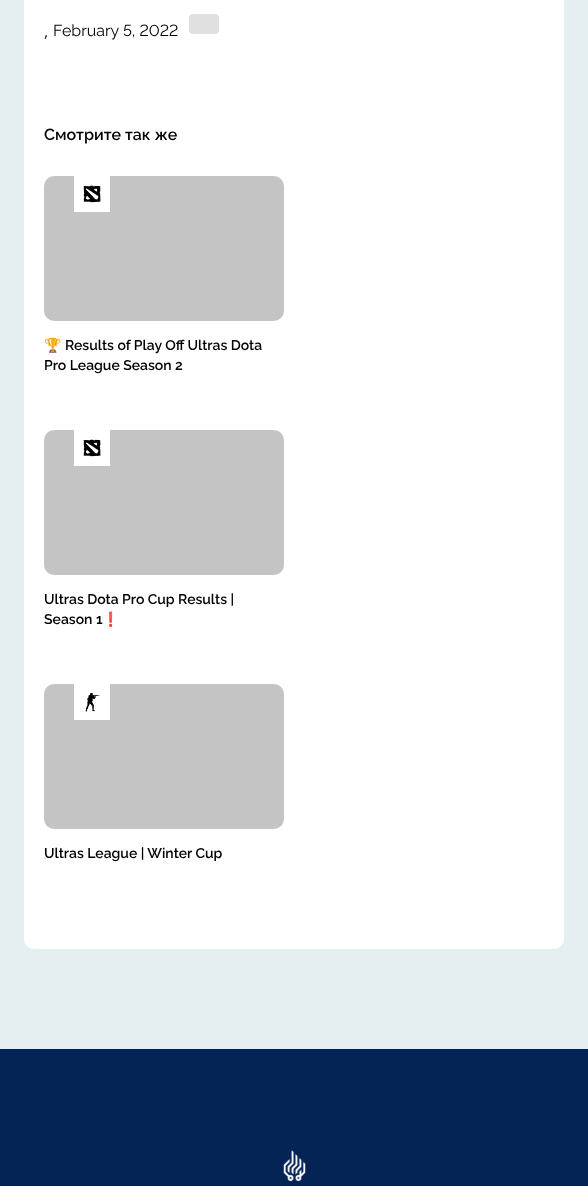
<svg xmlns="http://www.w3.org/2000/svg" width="588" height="1186">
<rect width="100%" height="100%" fill="#e5eff2"/>
<rect x="24" y="-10" width="540" height="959" rx="10" fill="#fff"/>
<text x="44" y="37" style="font-family:Noto Sans;font-size:16px;fill:#212529">,</text>
<text x="53" y="36" style="font-family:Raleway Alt;font-size:16px;fill:#000">February 5, 2022</text>
<rect x="189" y="14" width="30" height="20" rx="4" fill="#e0e0e0"/>
<text x="44" y="140" style="font-family:Raleway;font-size:16px;font-weight:600;fill:#000">Смотрите так же</text>
<rect x="44" y="176" width="240" height="145" rx="10" fill="#c4c4c4"/>
<rect x="74" y="176" width="36" height="36" fill="#fff"/>
<image x="83" y="185" width="18" height="18" href="media/1.png"/>
<text x="44" y="350" style="font-family:Noto Color Emoji;font-size:14px;font-weight:bold;fill:#000">🏆</text>
<text x="65" y="350" style="font-family:Raleway;font-size:14px;font-weight:600;fill:#000">Results of Play Off Ultras Dota</text>
<text x="44" y="370" style="font-family:Raleway;font-size:14px;font-weight:600;fill:#000">Pro League Season 2</text>
<rect x="44" y="430" width="240" height="145" rx="10" fill="#c4c4c4"/>
<rect x="74" y="430" width="36" height="36" fill="#fff"/>
<image x="83" y="439" width="18" height="18" href="media/1.png"/>
<text x="44" y="604" style="font-family:Raleway;font-size:14px;font-weight:600;fill:#000">Ultras Dota Pro Cup Results |</text>
<text x="44" y="624" style="font-family:Raleway;font-size:14px;font-weight:600;fill:#000">Season 1</text>
<text x="102" y="624" style="font-family:Noto Color Emoji;font-size:14px;font-weight:bold;fill:#000">❗️</text>
<rect x="44" y="684" width="240" height="145" rx="10" fill="#c4c4c4"/>
<rect x="74" y="684" width="36" height="36" fill="#fff"/>
<image x="85" y="692" width="16" height="20" href="media/2.png"/>
<text x="44" y="858" style="font-family:Raleway;font-size:14px;font-weight:600;fill:#000">Ultras League | Winter Cup</text>
<rect y="1049" width="588" height="137" fill="#042455"/>
<image x="283" y="1150" width="23" height="32" href="media/3.png"/>
</svg>
